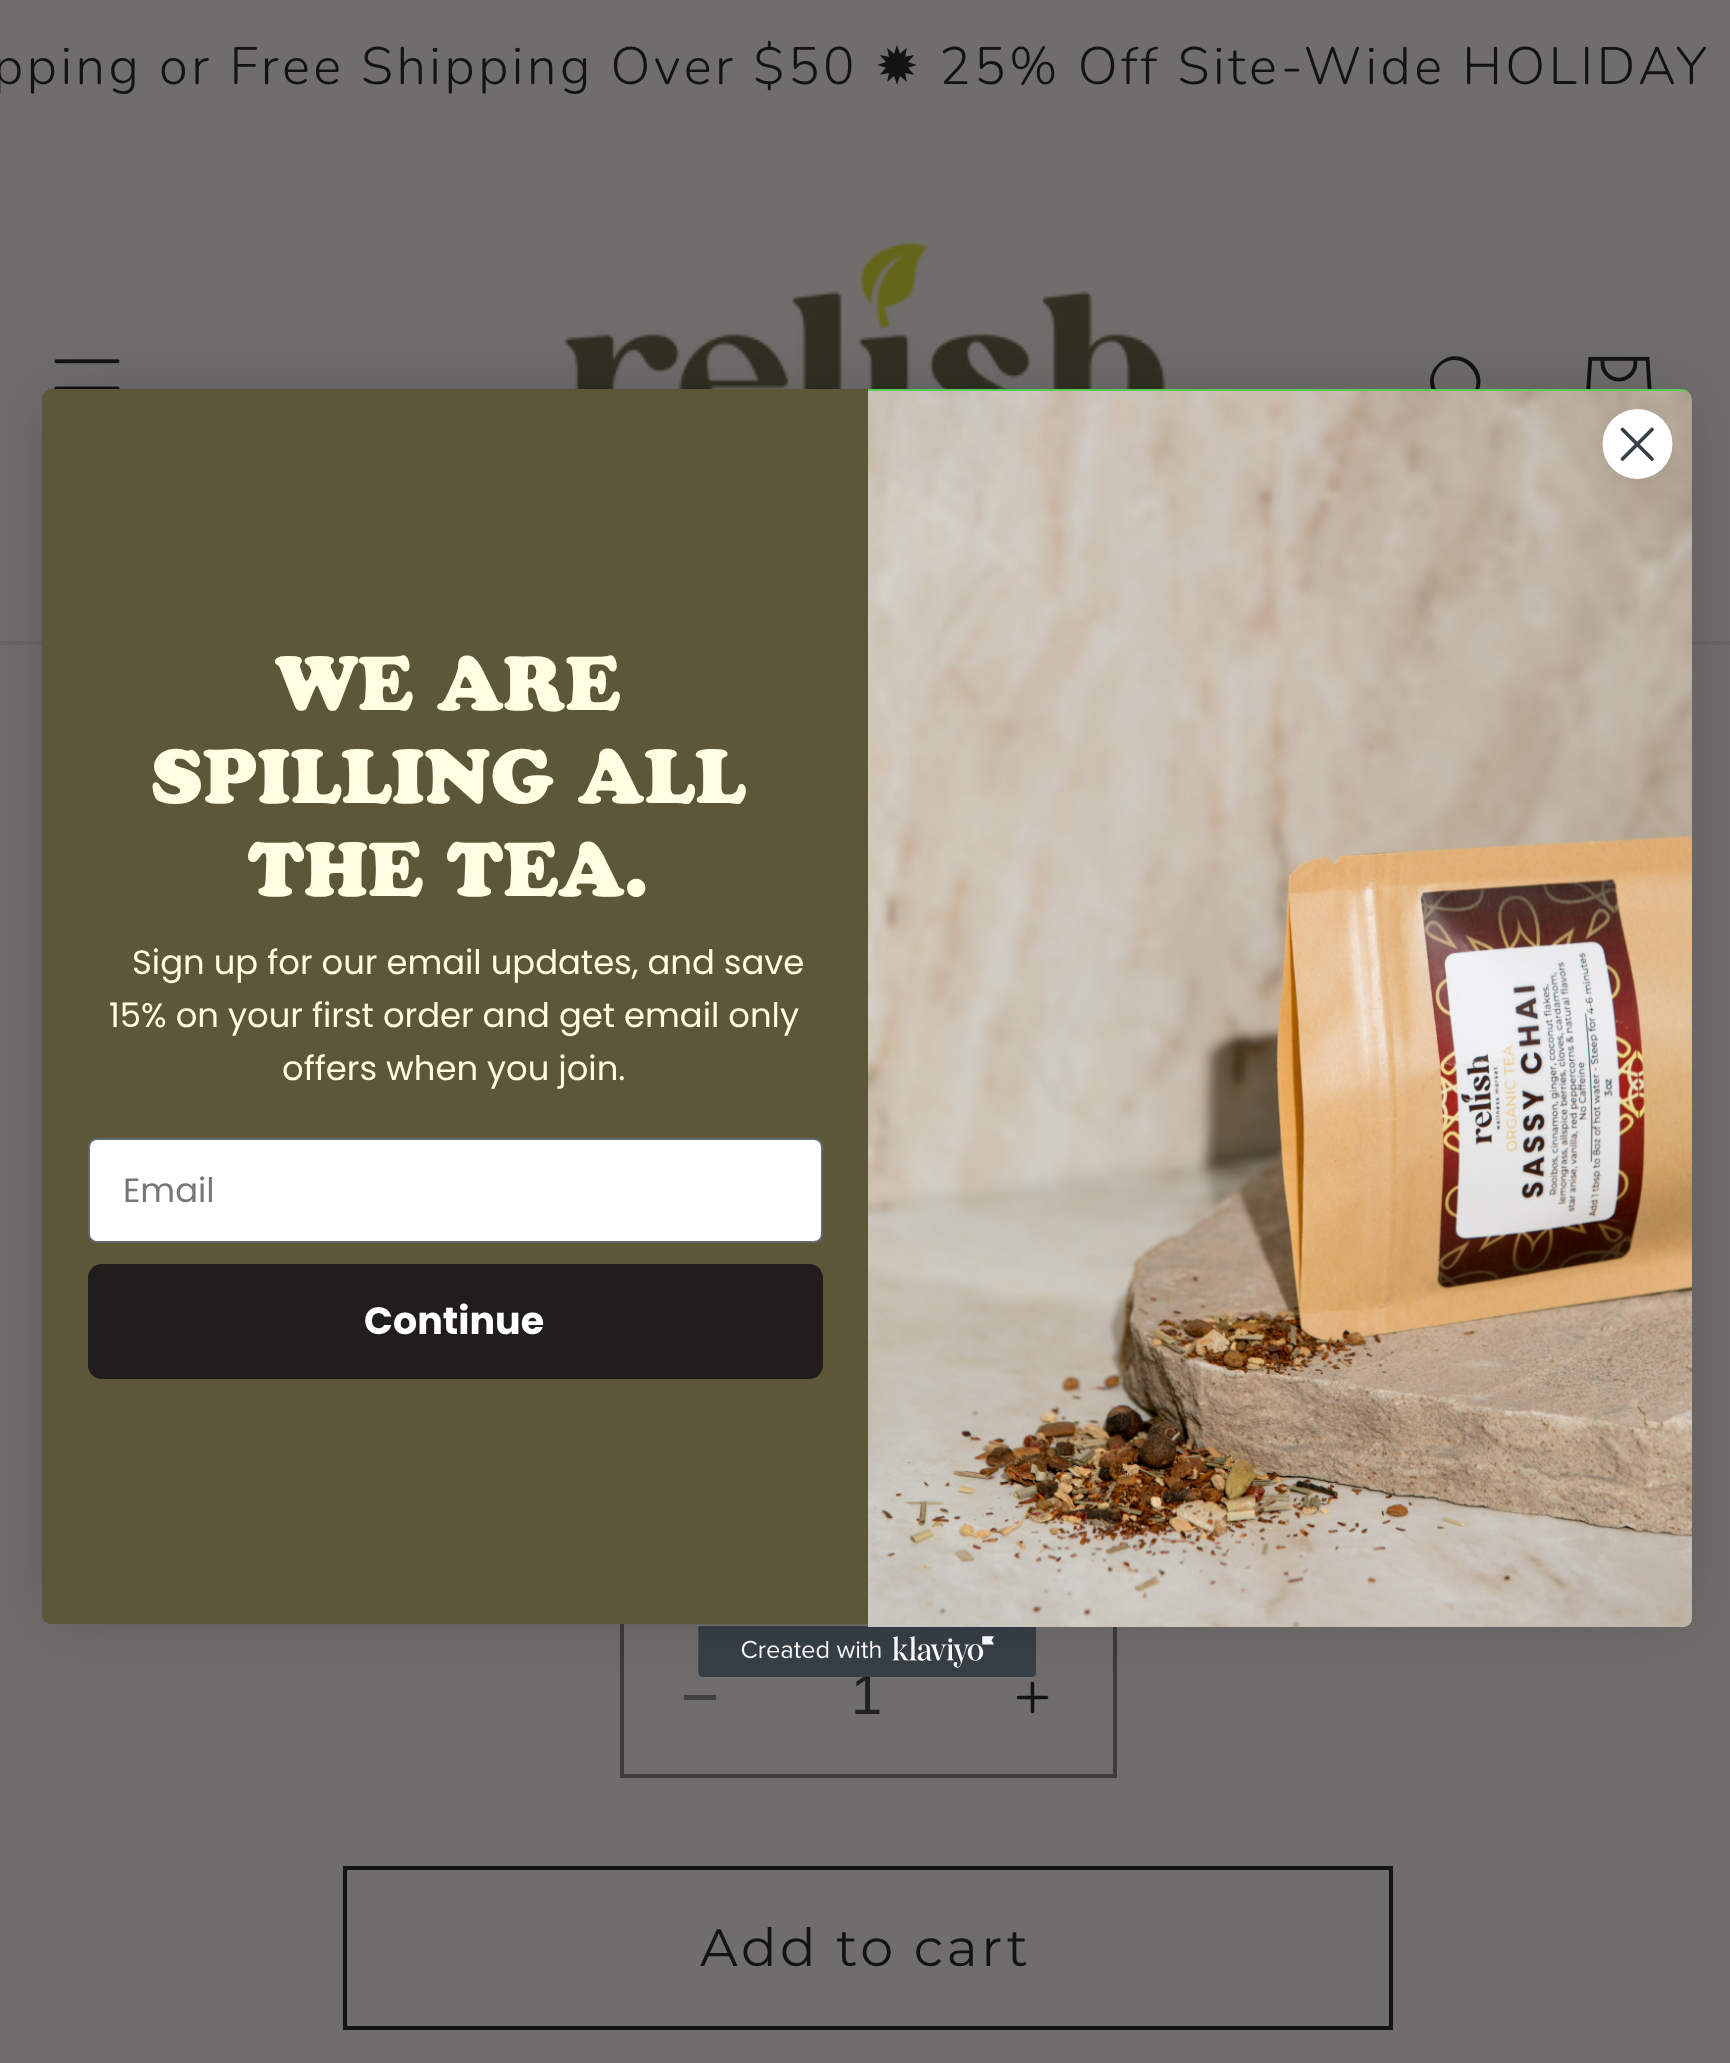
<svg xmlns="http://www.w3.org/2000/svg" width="1730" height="2063">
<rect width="100%" height="100%" fill="#6f6e6c"/>
<text x="-7" y="84" style="font-family:Nunito;font-size:52.5px;font-weight:300;letter-spacing:3.5px;fill:#131313">pping or Free Shipping Over $50</text>
<text x="875" y="84" style="font-family:DejaVu Sans;font-size:52.5px;letter-spacing:3.5px;fill:#131313">✹</text>
<text x="939" y="84" style="font-family:Nunito;font-size:52.5px;font-weight:300;letter-spacing:3.5px;fill:#131313">25% Off Site-Wide HOLIDAY</text>
<rect y="641" width="1730" height="4" fill="#686665"/>
<image x="54" y="359" width="66" height="30" href="media/1.png"/>
<image x="564" y="242" width="602" height="147" href="media/2.png"/>
<path d="M1470 397c-19 19-49-11-30-31c20-19 50 11 30 31zm1 4c-24 20-56-15-33-37c23-23 57 10 36 34c3 3 21 19 21 21l-1 2c-3 1-8-6-9-7z" fill="#131313" fill-rule="evenodd"/>
<image x="1586" y="356" width="66" height="33" href="media/3.png"/>
<rect x="684" y="1695" width="32" height="5" fill="#414040"/>
<image x="1016" y="1681" width="33" height="33" href="media/6.png"/>
<rect x="622" y="1616" width="493" height="160" fill="none" stroke="#3d3c3b" stroke-width="4"/>
<text x="851" y="1714" style="font-family:Liberation Sans;font-size:56px;fill:#212120">1</text>
<image x="698" y="1626" width="338" height="51" href="media/5.png"/>
<rect x="42" y="389" width="1649" height="1235" rx="9" fill="#00000026" filter="blur(31.5px)"/>
<rect x="42" y="389" width="1649" height="1235" rx="9" fill="#5c5738"/>
<path d="M868 389h814c5 0 9 4 9 9v1217c0 5-4 9-9 9h-814z" fill="#5c5"/>
<image x="868" y="391" width="824" height="1236" href="media/4.png"/>
<circle cx="1637.5" cy="444" r="35" fill="#fff"/>
<path d="M1622.5 429.5l29.5 29.5m-29.5 0l29.5-29.5z" fill="none" stroke="#373f47" stroke-width="3.7" stroke-linecap="round" stroke-linejoin="round"/>
<text x="275" y="710" style="font-family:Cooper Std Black;font-size:76px;font-weight:900;fill:#fffee3">WE ARE</text>
<text x="151" y="803" style="font-family:Cooper Std Black;font-size:76px;font-weight:900;fill:#fffee3">SPILLING ALL</text>
<text x="248" y="896" style="font-family:Cooper Std Black;font-size:76px;font-weight:900;fill:#fffee3">THE TEA.</text>
<text x="132" y="974" style="font-family:Poppins;font-size:33.8px;fill:#fffee3">Sign up for our email updates, and save</text>
<text x="109" y="1027" style="font-family:Poppins;font-size:33.8px;fill:#fffee3">15% on your first order and get email only</text>
<text x="282" y="1080" style="font-family:Poppins;font-size:33.8px;fill:#fffee3">offers when you join.</text>
<rect x="89" y="1139" width="733" height="103" rx="8" fill="#fff" stroke="#606a72" stroke-width="2"/>
<text x="123" y="1202" style="font-family:Poppins;font-size:33.8px;fill:#767676">Email</text>
<rect x="88" y="1264" width="735" height="115" rx="14" fill="#211d1c"/>
<text x="364" y="1334" style="font-family:Poppins;font-size:38px;font-weight:bold;fill:#fff">Continue</text>
<rect x="345" y="1868" width="1046" height="160" fill="none" stroke="#131313" stroke-width="4"/>
<text x="700" y="1966" style="font-family:Montserrat;font-size:52.5px;letter-spacing:3.5px;fill:#131313">Add to cart</text>
</svg>
